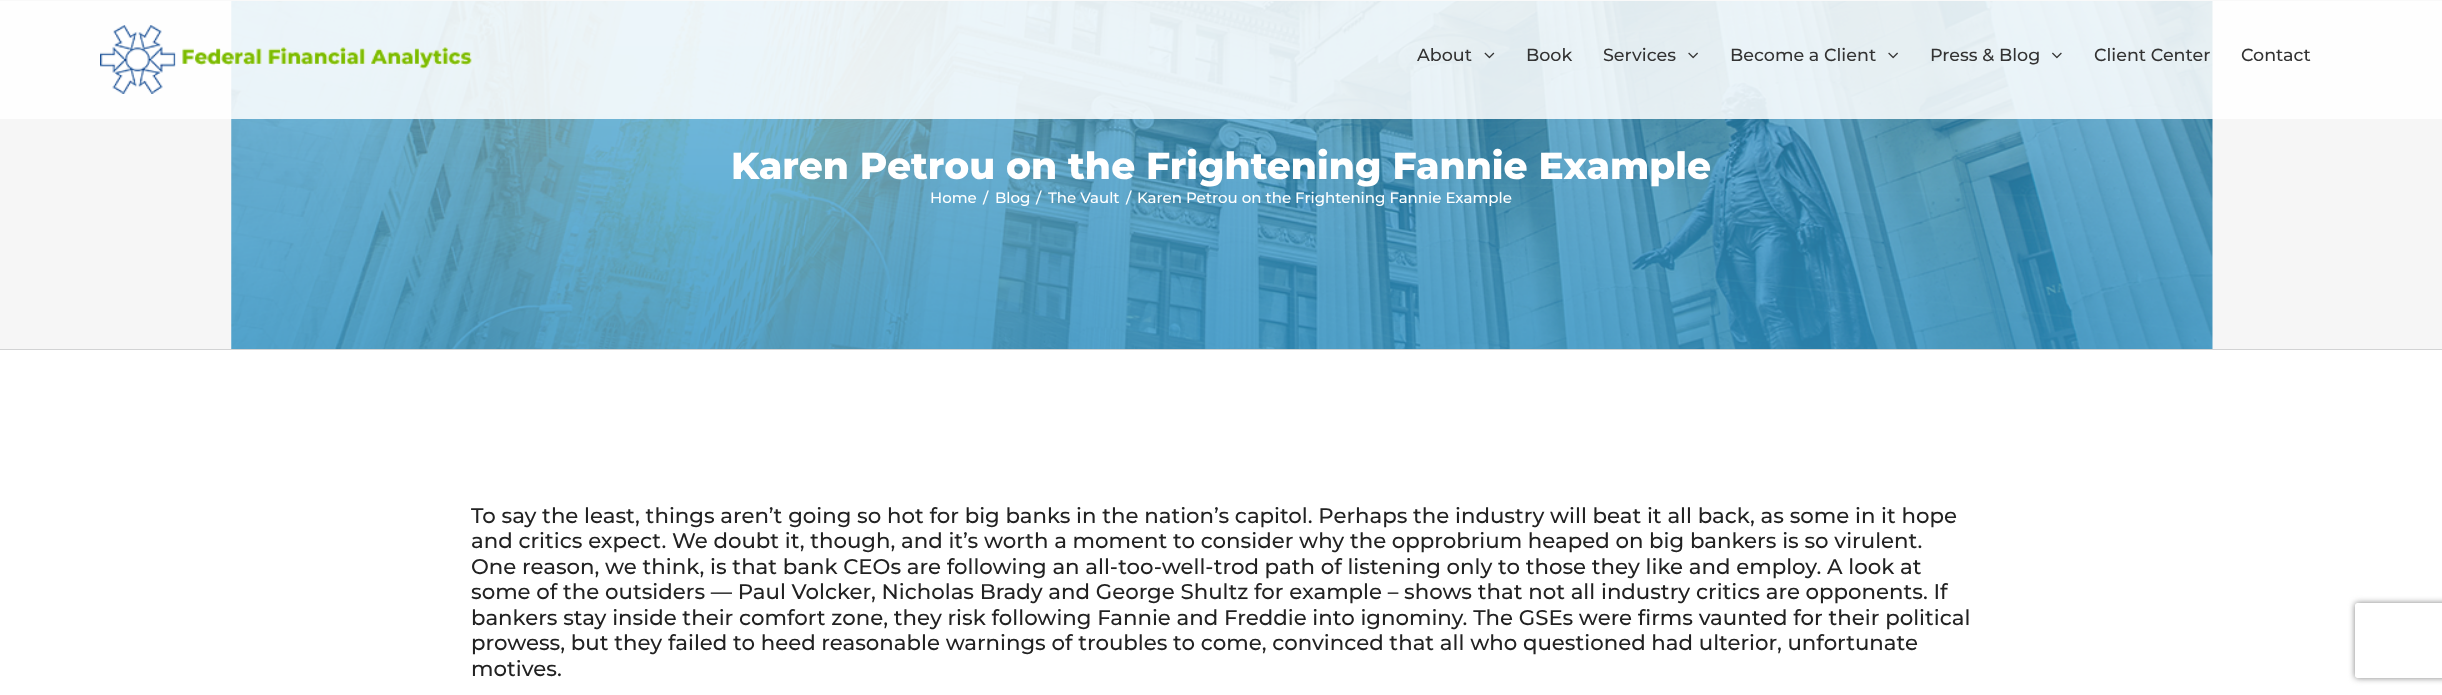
<svg xmlns="http://www.w3.org/2000/svg" width="2442" height="695">
<defs>
<clipPath id="clip1"><path d="M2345 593h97v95h-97zm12.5 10h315c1.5 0 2.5 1 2.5 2.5v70c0 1.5-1 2.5-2.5 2.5h-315c-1.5 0-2.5-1-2.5-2.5v-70c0-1.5 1-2.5 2.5-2.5z" clip-rule="evenodd"/></clipPath>
</defs>
<rect width="100%" height="100%" fill="#fff"/>
<rect y="1" width="2442" height="348" fill="#f6f6f6"/>
<image x="231" y="1" width="1982" height="348" href="media/6.png"/>
<rect width="2442" height="1" fill="#d2d3d4"/>
<rect width="2442" height="119" fill="#ffffffdb"/>
<image x="100" y="25" width="372" height="69" href="media/1.png"/>
<text x="1417" y="61" style="font-family:Montserrat;font-size:17.5px;font-weight:500;fill:#333">About</text>
<image x="1484" y="52" width="11" height="7" href="media/2.png"/>
<text x="1526" y="61" style="font-family:Montserrat;font-size:17.5px;font-weight:500;fill:#333">Book</text>
<text x="1603" y="61" style="font-family:Montserrat;font-size:17.5px;font-weight:500;fill:#333">Services</text>
<image x="1688" y="52" width="10" height="7" href="media/3.png"/>
<text x="1730" y="61" style="font-family:Montserrat;font-size:17.5px;font-weight:500;fill:#333">Become a Client</text>
<image x="1888" y="52" width="10" height="7" href="media/4.png"/>
<text x="1930" y="61" style="font-family:Montserrat;font-size:17.5px;font-weight:500;fill:#333">Press &amp; Blog</text>
<image x="2052" y="52" width="10" height="7" href="media/5.png"/>
<text x="2094" y="61" style="font-family:Montserrat;font-size:17.5px;font-weight:500;fill:#333">Client Center</text>
<text x="2241" y="61" style="font-family:Montserrat;font-size:17.5px;font-weight:500;fill:#333">Contact</text>
<rect y="349" width="2442" height="1" fill="#d2d3d4"/>
<text x="731" y="179" style="font-family:Montserrat;font-size:37.5px;font-weight:800;fill:#fff">Karen Petrou on the Frightening Fannie Example</text>
<text x="930" y="203" style="font-family:Montserrat;font-size:15px;font-weight:500;fill:#fff">Home</text>
<text x="983" y="203" style="font-family:Montserrat;font-size:15px;font-weight:500;fill:#fff">/</text>
<text x="995" y="203" style="font-family:Montserrat;font-size:15px;font-weight:500;fill:#fff">Blog</text>
<text x="1036" y="203" style="font-family:Montserrat;font-size:15px;font-weight:500;fill:#fff">/</text>
<text x="1048" y="203" style="font-family:Montserrat;font-size:15px;font-weight:500;fill:#fff">The Vault</text>
<text x="1126" y="203" style="font-family:Montserrat;font-size:15px;font-weight:500;fill:#fff">/</text>
<text x="1137" y="203" style="font-family:Montserrat;font-size:15px;font-weight:500;fill:#fff">Karen Petrou on the Frightening Fannie Example</text>
<text x="471" y="523" style="font-family:Montserrat;font-size:21.25px;font-weight:500;fill:#222">To say the least, things aren’t going so hot for big banks in the nation’s capitol. Perhaps the industry will beat it all back, as some in it hope</text>
<text x="471" y="548" style="font-family:Montserrat;font-size:21.25px;font-weight:500;fill:#222">and critics expect. We doubt it, though, and it’s worth a moment to consider why the opprobrium heaped on big bankers is so virulent.</text>
<text x="471" y="574" style="font-family:Montserrat;font-size:21.25px;font-weight:500;fill:#222">One reason, we think, is that bank CEOs are following an all-too-well-trod path of listening only to those they like and employ. A look at</text>
<text x="471" y="599" style="font-family:Montserrat;font-size:21.25px;font-weight:500;fill:#222">some of the outsiders — Paul Volcker, Nicholas Brady and George Shultz for example – shows that not all industry critics are opponents. If</text>
<text x="471" y="625" style="font-family:Montserrat;font-size:21.25px;font-weight:500;fill:#222">bankers stay inside their comfort zone, they risk following Fannie and Freddie into ignominy. The GSEs were firms vaunted for their political</text>
<text x="471" y="650" style="font-family:Montserrat;font-size:21.25px;font-weight:500;fill:#222">prowess, but they failed to heed reasonable warnings of troubles to come, convinced that all who questioned had ulterior, unfortunate</text>
<text x="471" y="676" style="font-family:Montserrat;font-size:21.25px;font-weight:500;fill:#222">motives.</text>
<g clip-path="url(#clip1)">
<rect x="2355" y="603" width="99" height="75" rx="2.5" fill="#808080" filter="blur(3px)"/>
</g>
</svg>
